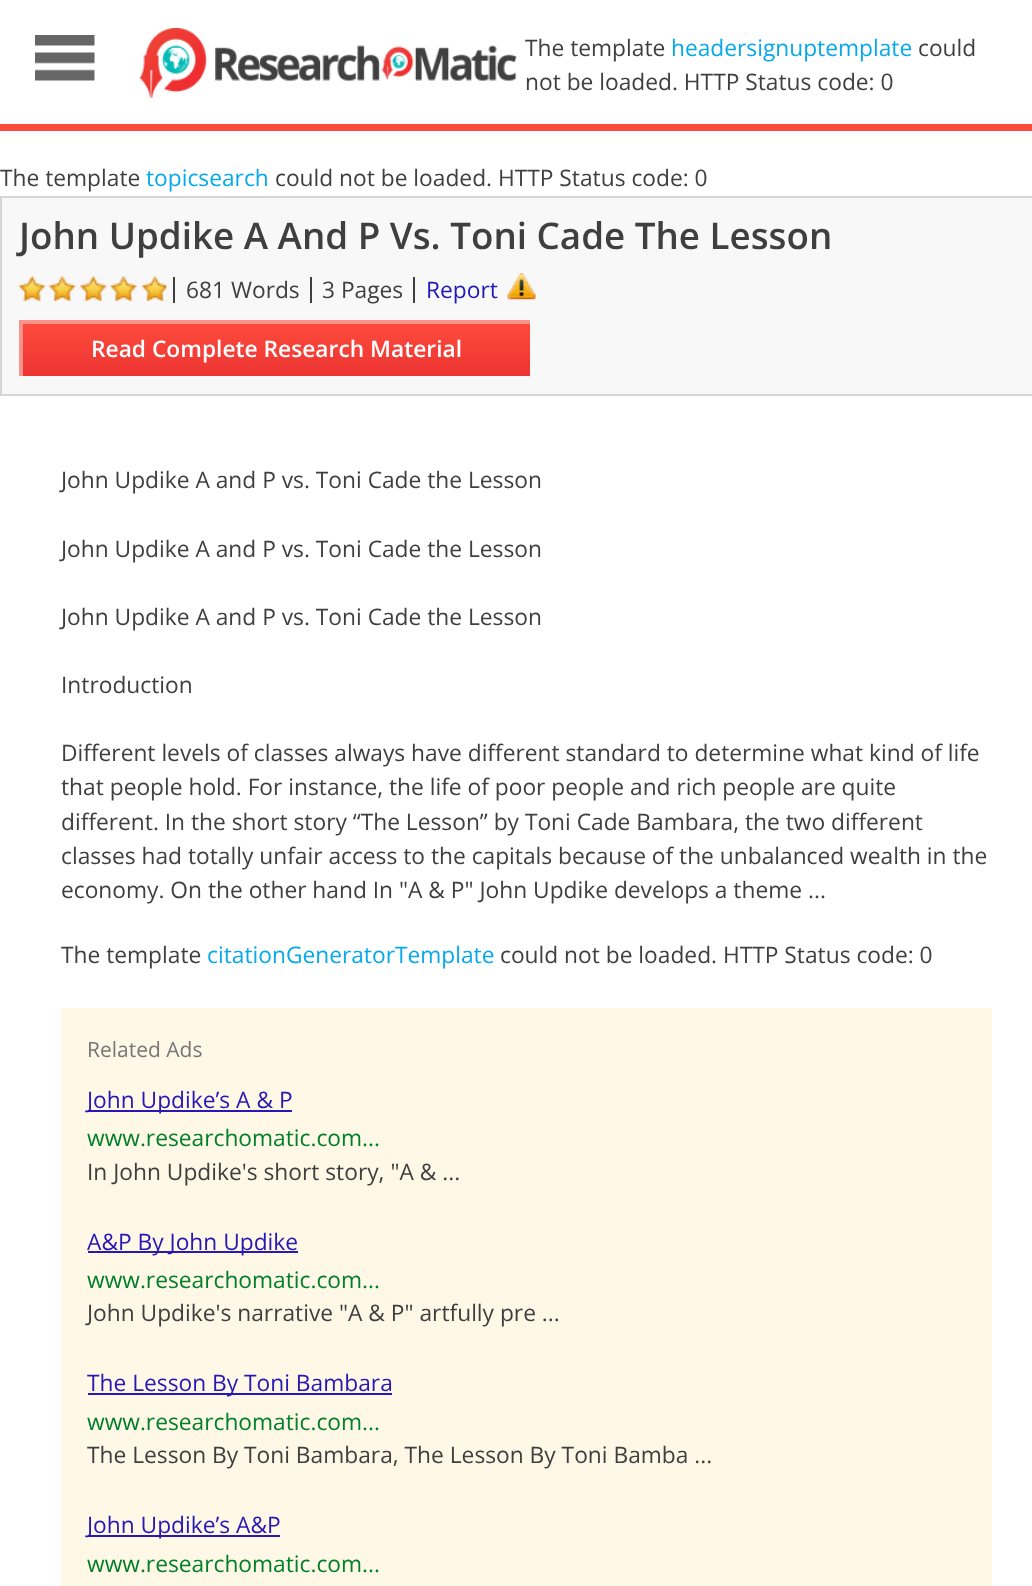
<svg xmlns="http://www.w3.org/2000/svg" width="1032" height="1586">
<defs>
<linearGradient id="g1" gradientUnits="userSpaceOnUse" x1="277" y1="324" x2="277" y2="376"><stop offset="0" stop-color="#fd4a3c"/><stop offset="1" stop-color="#ed3432"/></linearGradient>
</defs>
<rect width="100%" height="100%" fill="#fff"/>
<rect y="124" width="1032" height="7" fill="#fe493d"/>
<image x="35" y="35" width="60" height="46" href="media/1.png"/>
<image x="140" y="28" width="377" height="70" href="media/2.png"/>
<text x="525" y="56" style="font-family:Open Sans;font-size:22.75px;fill:#3f3f3f">The template</text>
<text x="671" y="56" style="font-family:Open Sans;font-size:22.75px;fill:#07a9ec">headersignuptemplate</text>
<text x="918" y="56" style="font-family:Open Sans;font-size:22.75px;fill:#3f3f3f">could</text>
<text x="525" y="90" style="font-family:Open Sans;font-size:22.75px;fill:#3f3f3f">not be loaded. HTTP Status code: 0</text>
<text x="0" y="186" style="font-family:Open Sans;font-size:22.75px;fill:#3f3f3f">The template</text>
<text x="146" y="186" style="font-family:Open Sans;font-size:22.75px;fill:#07a9ec">topicsearch</text>
<text x="275" y="186" style="font-family:Open Sans;font-size:22.75px;fill:#3f3f3f">could not be loaded. HTTP Status code: 0</text>
<rect x="1" y="197" width="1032" height="198" fill="#f8f8f8" stroke="#d5d5d5" stroke-width="2"/>
<text x="19" y="249" style="font-family:Open Sans;font-size:36.75px;font-weight:600;fill:#3f3f3f">John Updike A And P Vs. Toni Cade The Lesson</text>
<image x="19" y="276" width="148" height="25" href="media/3.png"/>
<rect x="173" y="277" width="2" height="26" fill="#3f3f3f"/>
<text x="186" y="298" style="font-family:Open Sans;font-size:22.75px;fill:#3f3f3f">681 Words</text>
<rect x="310" y="277" width="2" height="26" fill="#3f3f3f"/>
<text x="322" y="298" style="font-family:Open Sans;font-size:22.75px;fill:#3f3f3f">3 Pages</text>
<rect x="413" y="277" width="2" height="26" fill="#3f3f3f"/>
<text x="426" y="298" style="font-family:Open Sans;font-size:22.75px;fill:#2518b5">Report</text>
<image x="507" y="273" width="29" height="27" href="media/4.png"/>
<rect x="23" y="324" width="507" height="52" fill="url(#g1)"/>
<rect x="19" y="320" width="511" height="4" fill="#fb928c"/>
<rect x="19" y="320" width="4" height="56" fill="#fb928c"/>
<text x="91" y="357" style="font-family:Open Sans;font-size:22.75px;font-weight:600;fill:#fff">Read Complete Research Material</text>
<text x="61" y="488" style="font-family:Open Sans;font-size:22.75px;fill:#3f3f3f">John Updike A and P vs. Toni Cade the Lesson</text>
<text x="61" y="557" style="font-family:Open Sans;font-size:22.75px;fill:#3f3f3f">John Updike A and P vs. Toni Cade the Lesson</text>
<text x="61" y="625" style="font-family:Open Sans;font-size:22.75px;fill:#3f3f3f">John Updike A and P vs. Toni Cade the Lesson</text>
<text x="61" y="693" style="font-family:Open Sans;font-size:22.75px;fill:#3f3f3f">Introduction</text>
<text x="61" y="761" style="font-family:Open Sans;font-size:22.75px;fill:#3f3f3f">Different levels of classes always have different standard to determine what kind of life</text>
<text x="61" y="795" style="font-family:Open Sans;font-size:22.75px;fill:#3f3f3f">that people hold. For instance, the life of poor people and rich people are quite</text>
<text x="61" y="830" style="font-family:Open Sans;font-size:22.75px;fill:#3f3f3f">different. In the short story “The Lesson” by Toni Cade Bambara, the two different</text>
<text x="61" y="864" style="font-family:Open Sans;font-size:22.75px;fill:#3f3f3f">classes had totally unfair access to the capitals because of the unbalanced wealth in the</text>
<text x="61" y="898" style="font-family:Open Sans;font-size:22.75px;fill:#3f3f3f">economy. On the other hand In "A &amp; P" John Updike develops a theme ...</text>
<text x="61" y="963" style="font-family:Open Sans;font-size:22.75px;fill:#3f3f3f">The template</text>
<text x="207" y="963" style="font-family:Open Sans;font-size:22.75px;fill:#07a9ec">citationGeneratorTemplate</text>
<text x="500" y="963" style="font-family:Open Sans;font-size:22.75px;fill:#3f3f3f">could not be loaded. HTTP Status code: 0</text>
<rect x="61" y="1008" width="931" height="578" fill="#fff8e6"/>
<text x="87" y="1057" style="font-family:Open Sans;font-size:21px;fill:#777">Related Ads</text>
<rect x="88" y="1110" width="204" height="2" fill="#2518b5"/>
<text x="87" y="1108" style="font-family:Open Sans;font-size:22.75px;fill:#2518b5">John Updike’s A &amp; P</text>
<text x="87" y="1146" style="font-family:Open Sans;font-size:22.75px;fill:#00802a">www.researchomatic.com...</text>
<text x="87" y="1180" style="font-family:Open Sans;font-size:22.75px;fill:#3f3f3f">In John Updike's short story, "A &amp; ...</text>
<rect x="88" y="1251" width="210" height="2" fill="#2518b5"/>
<text x="87" y="1250" style="font-family:Open Sans;font-size:22.75px;fill:#2518b5">A&amp;P By John Updike</text>
<text x="87" y="1288" style="font-family:Open Sans;font-size:22.75px;fill:#00802a">www.researchomatic.com...</text>
<text x="87" y="1321" style="font-family:Open Sans;font-size:22.75px;fill:#3f3f3f">John Updike's narrative "A &amp; P" artfully pre ...</text>
<rect x="88" y="1393" width="304" height="2" fill="#2518b5"/>
<text x="87" y="1391" style="font-family:Open Sans;font-size:22.75px;fill:#2518b5">The Lesson By Toni Bambara</text>
<text x="87" y="1430" style="font-family:Open Sans;font-size:22.75px;fill:#00802a">www.researchomatic.com...</text>
<text x="87" y="1463" style="font-family:Open Sans;font-size:22.75px;fill:#3f3f3f">The Lesson By Toni Bambara, The Lesson By Toni Bamba ...</text>
<rect x="88" y="1535" width="192" height="2" fill="#2518b5"/>
<text x="87" y="1533" style="font-family:Open Sans;font-size:22.75px;fill:#2518b5">John Updike’s A&amp;P</text>
<text x="87" y="1572" style="font-family:Open Sans;font-size:22.75px;fill:#00802a">www.researchomatic.com...</text>
</svg>
